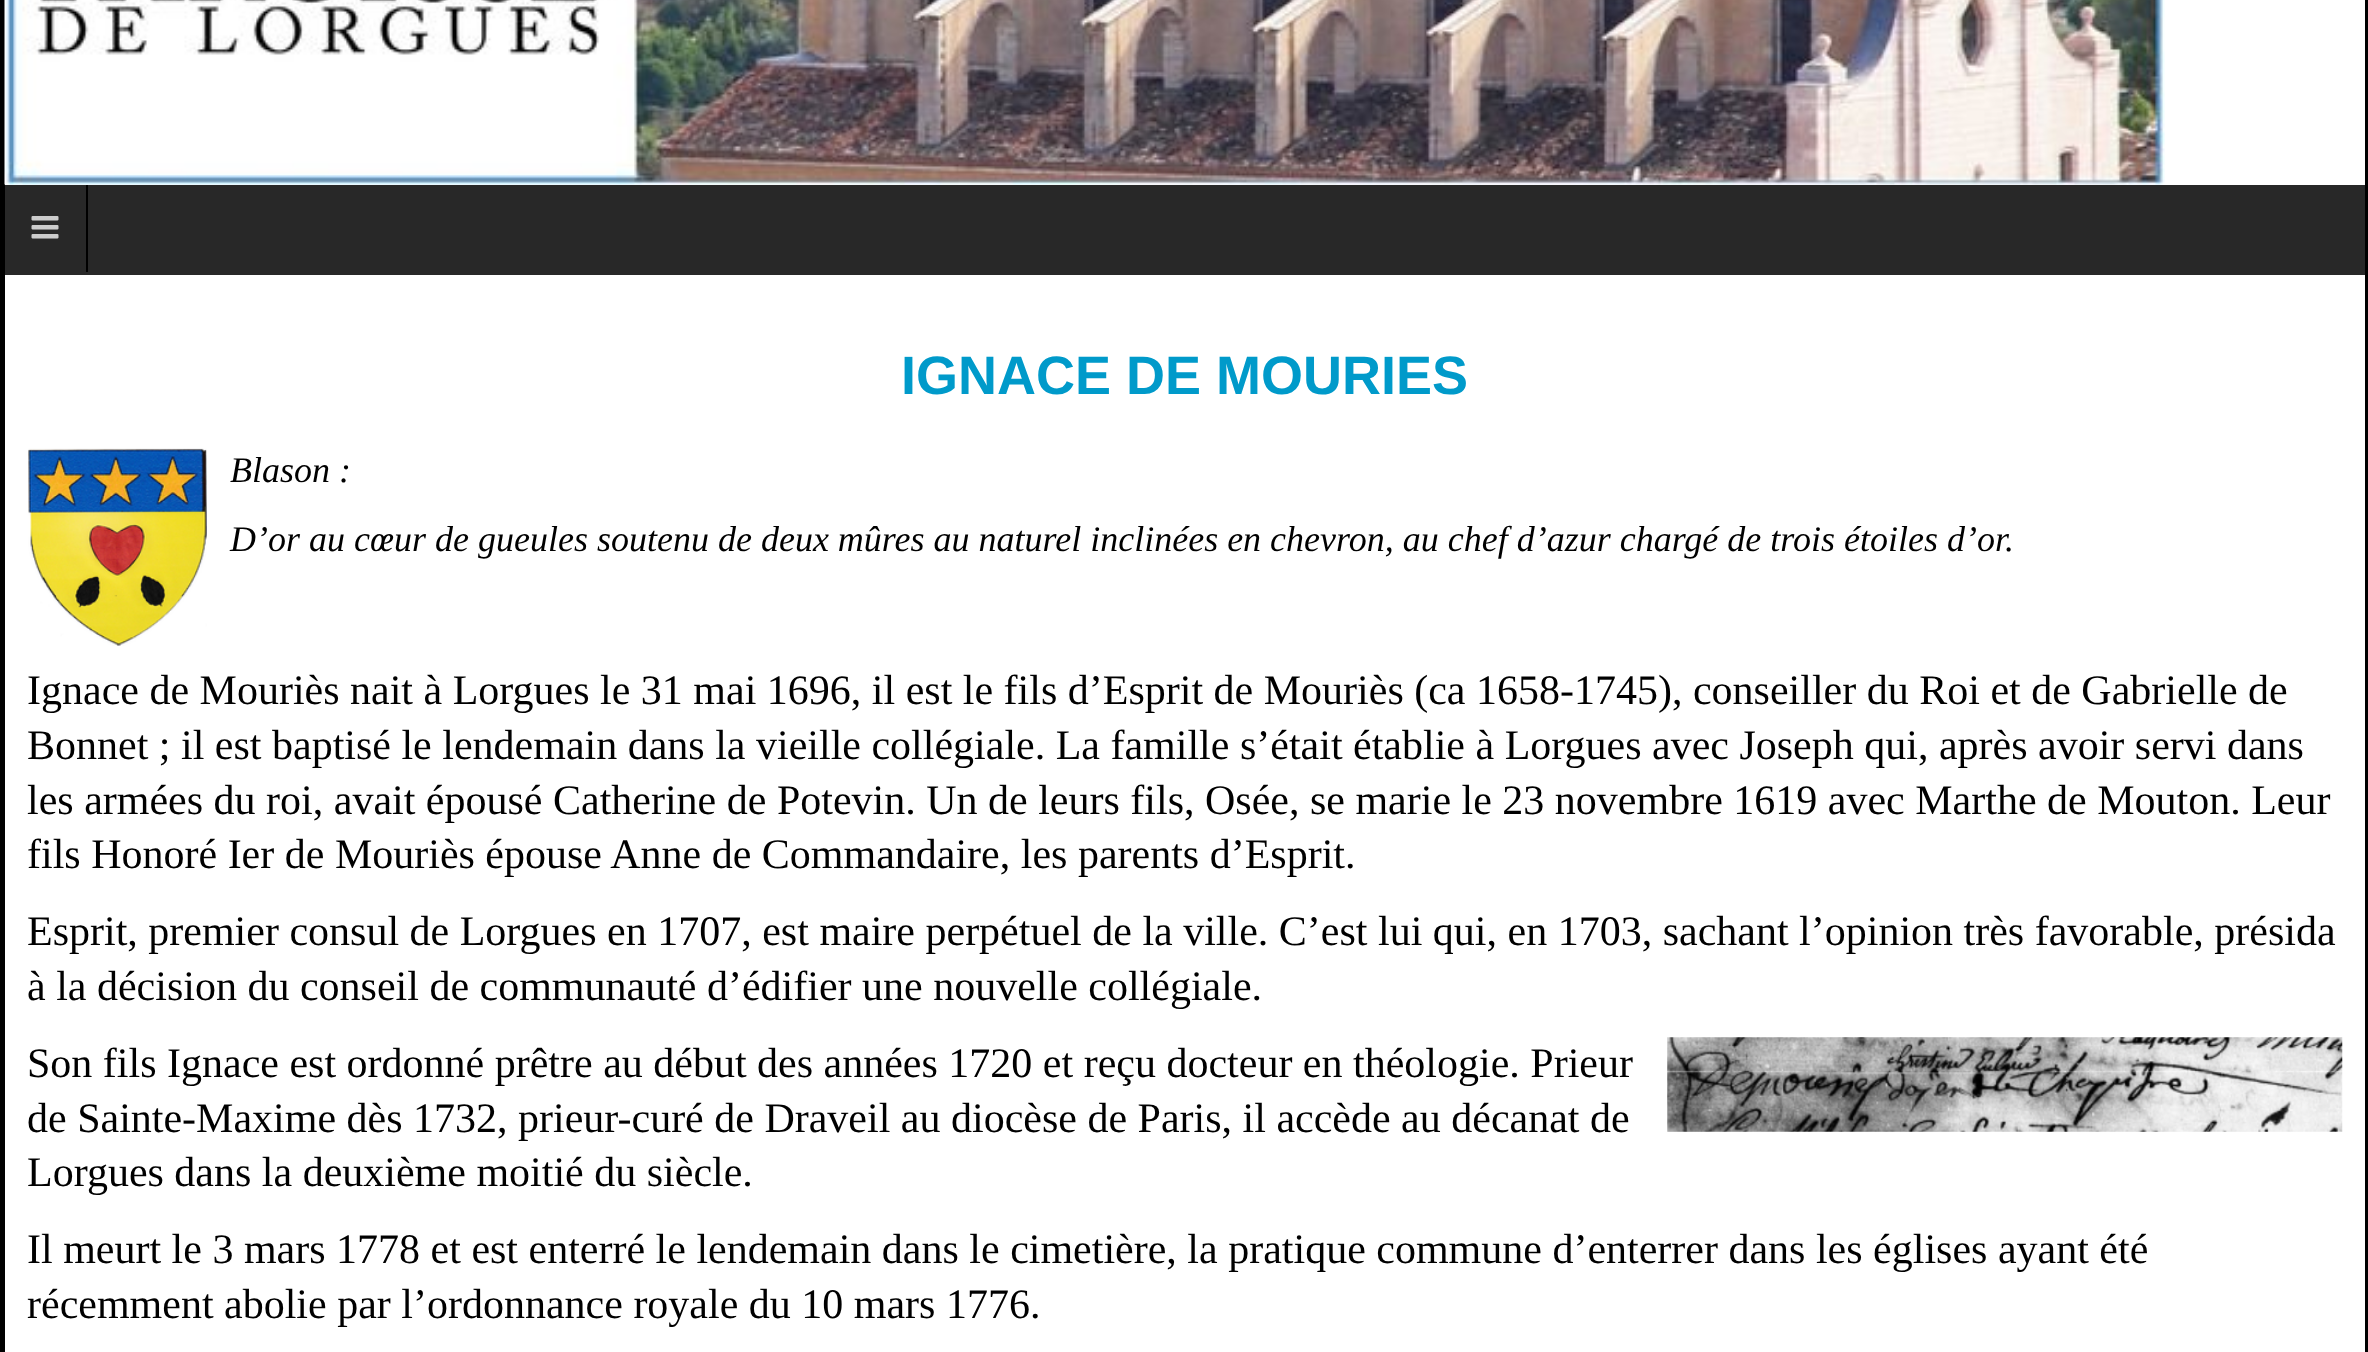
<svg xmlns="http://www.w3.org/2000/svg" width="2368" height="1352">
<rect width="100%" height="100%" fill="#000"/>
<rect x="5" width="2360" height="1352" fill="#fff"/>
<image x="4" y="0" width="2161" height="185" href="media/1.png"/>
<rect x="5" y="185" width="2360" height="90" fill="#282828"/>
<rect x="86" y="185" width="2" height="87" fill="#000"/>
<image x="31" y="216" width="28" height="23" href="media/2.png"/>
<text x="901" y="394" style="font-family:Liberation Sans;font-size:54px;font-weight:bold;fill:#009aca">IGNACE DE MOURIES</text>
<image x="28" y="448" width="179" height="198" href="media/3.png"/>
<text x="230" y="482" style="font-family:Liberation Serif;font-size:36px;font-style:italic;fill:#000">Blason :</text>
<text x="230" y="551" style="font-family:Liberation Serif;font-size:36px;font-style:italic;fill:#000">D’or au cœur de gueules soutenu de deux mûres au naturel inclinées en chevron, au chef d’azur chargé de trois étoiles d’or.</text>
<text x="27" y="704" style="font-family:Liberation Serif;font-size:42px;fill:#000">Ignace de Mouriès nait à Lorgues le 31 mai 1696, il est le fils d’Esprit de Mouriès (ca 1658-1745), conseiller du Roi et de Gabrielle de</text>
<text x="27" y="759" style="font-family:Liberation Serif;font-size:42px;fill:#000">Bonnet ; il est baptisé le lendemain dans la vieille collégiale. La famille s’était établie à Lorgues avec Joseph qui, après avoir servi dans</text>
<text x="27" y="814" style="font-family:Liberation Serif;font-size:42px;fill:#000">les armées du roi, avait épousé Catherine de Potevin. Un de leurs fils, Osée, se marie le 23 novembre 1619 avec Marthe de Mouton. Leur</text>
<text x="27" y="868" style="font-family:Liberation Serif;font-size:42px;fill:#000">fils Honoré Ier de Mouriès épouse Anne de Commandaire, les parents d’Esprit.</text>
<text x="27" y="945" style="font-family:Liberation Serif;font-size:42px;fill:#000">Esprit, premier consul de Lorgues en 1707, est maire perpétuel de la ville. C’est lui qui, en 1703, sachant l’opinion très favorable, présida</text>
<text x="27" y="1000" style="font-family:Liberation Serif;font-size:42px;fill:#000">à la décision du conseil de communauté d’édifier une nouvelle collégiale.</text>
<text x="27" y="1077" style="font-family:Liberation Serif;font-size:42px;fill:#000">Son fils Ignace est ordonné prêtre au début des années 1720 et reçu docteur en théologie. Prieur</text>
<image x="1667" y="1037" width="676" height="95" href="media/4.png"/>
<text x="27" y="1132" style="font-family:Liberation Serif;font-size:42px;fill:#000">de Sainte-Maxime dès 1732, prieur-curé de Draveil au diocèse de Paris, il accède au décanat de</text>
<text x="27" y="1186" style="font-family:Liberation Serif;font-size:42px;fill:#000">Lorgues dans la deuxième moitié du siècle.</text>
<text x="27" y="1263" style="font-family:Liberation Serif;font-size:42px;fill:#000">Il meurt le 3 mars 1778 et est enterré le lendemain dans le cimetière, la pratique commune d’enterrer dans les églises ayant été</text>
<text x="27" y="1318" style="font-family:Liberation Serif;font-size:42px;fill:#000">récemment abolie par l’ordonnance royale du 10 mars 1776.</text>
</svg>
